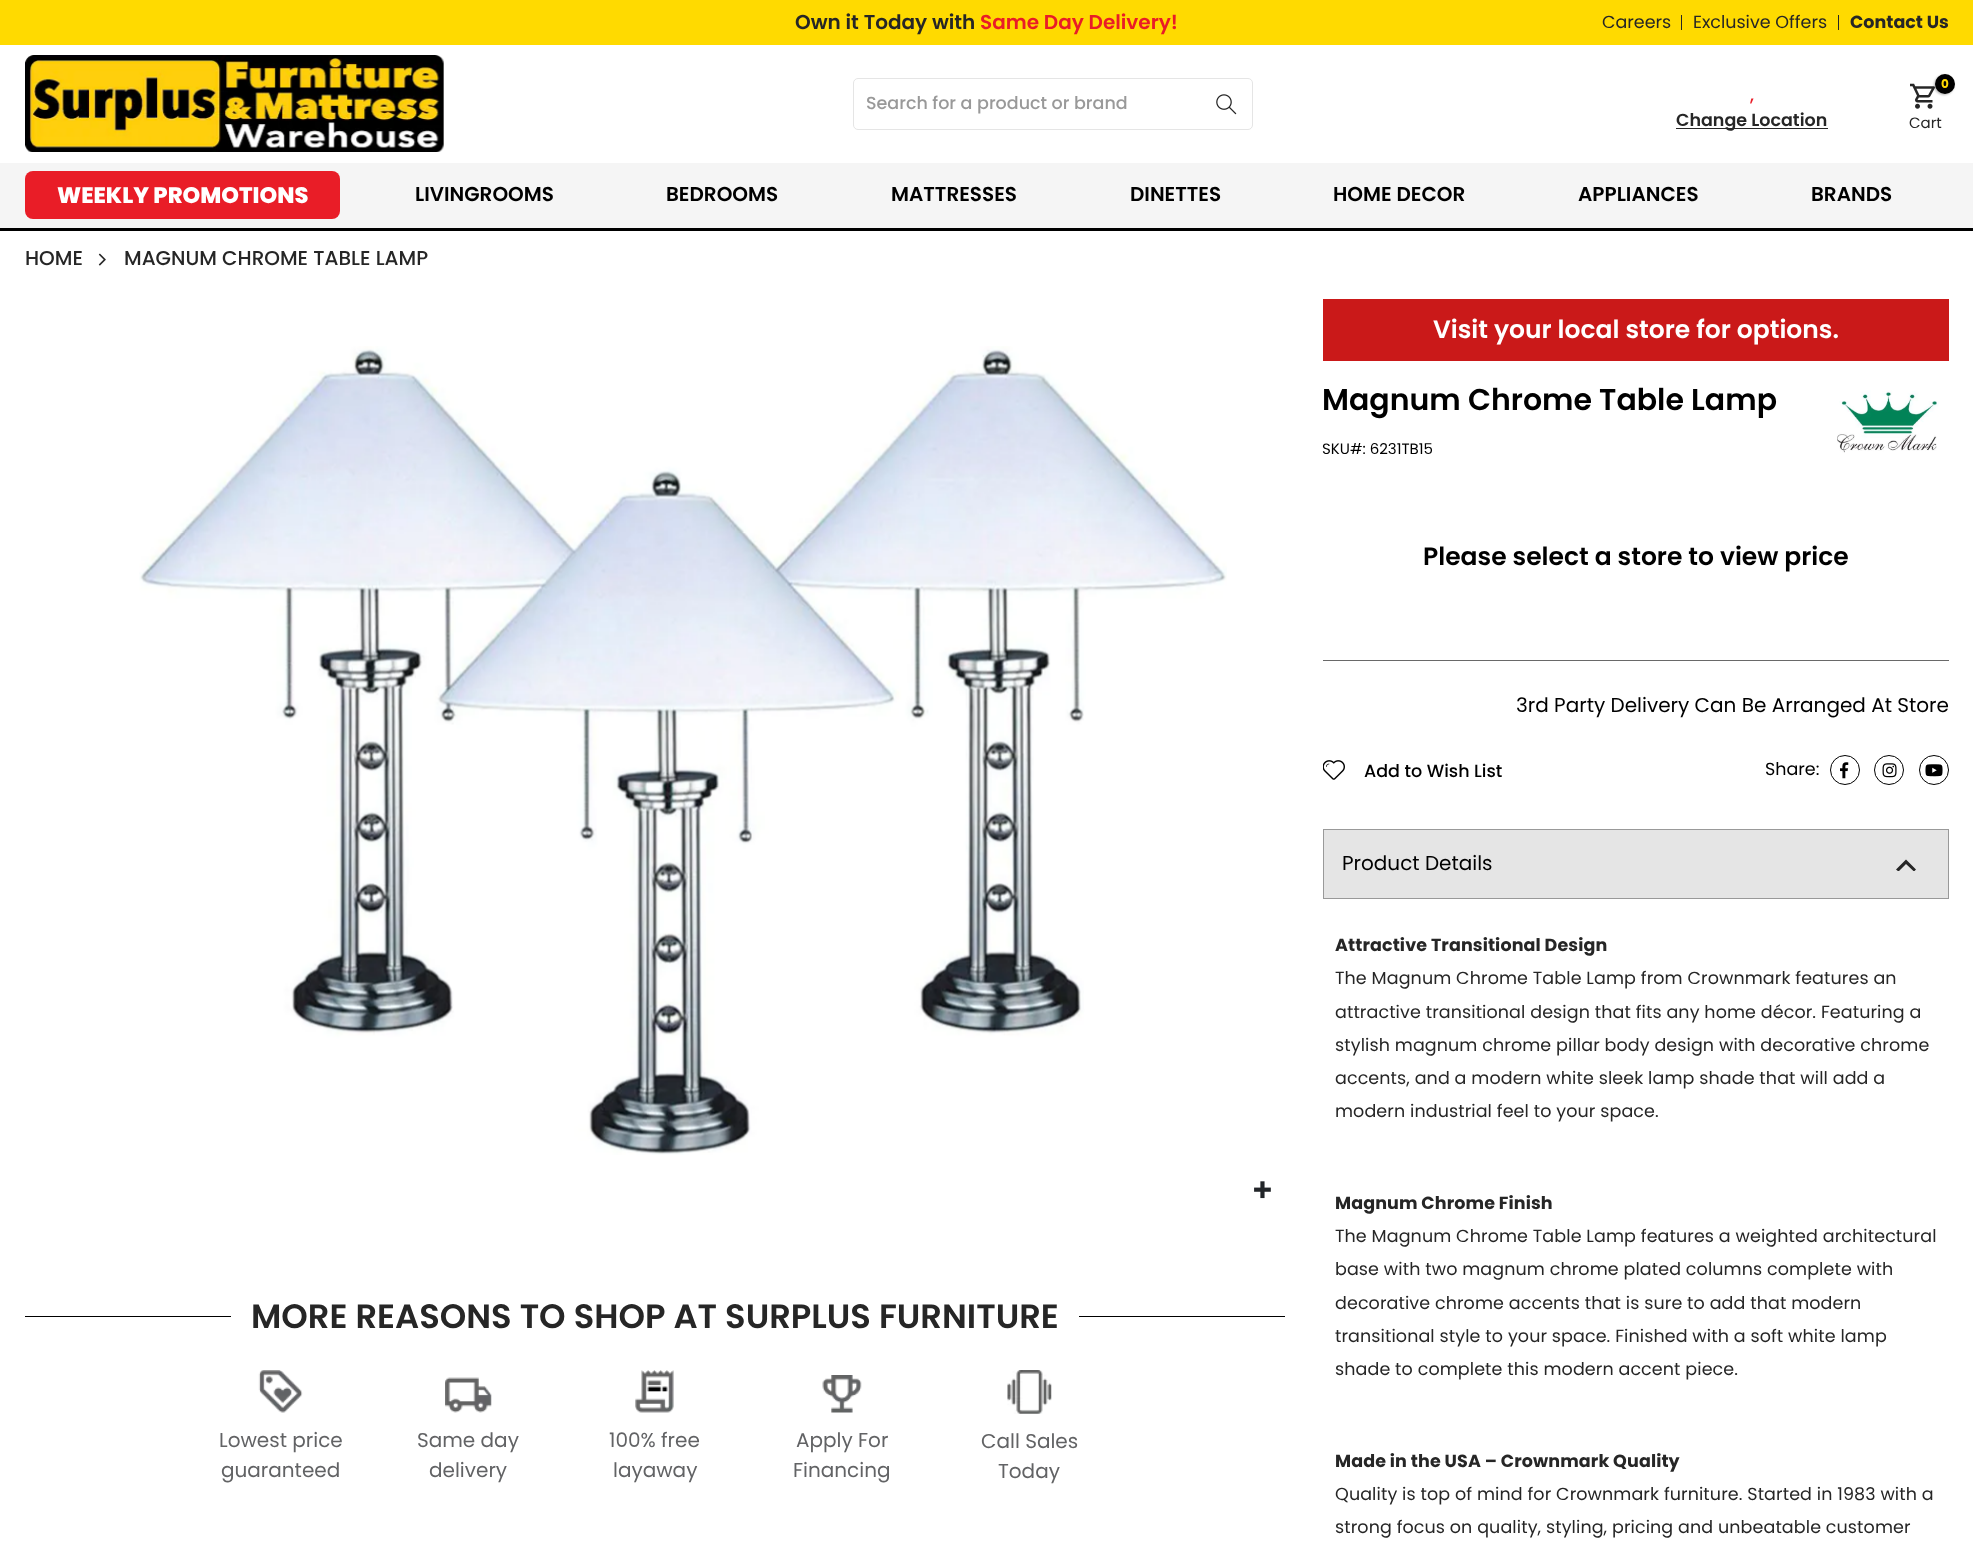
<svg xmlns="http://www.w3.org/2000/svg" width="1973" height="1550">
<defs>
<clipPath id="clip1"><rect x="1896" y="858" width="20" height="13"/></clipPath>
</defs>
<rect width="100%" height="100%" fill="#fff"/>
<rect width="1973" height="45" fill="#ffda00"/>
<text x="795" y="29" style="font-family:Poppins;font-size:20px;font-weight:600;fill:#262626">Own it Today with</text>
<text x="980" y="29" style="font-family:Poppins;font-size:20px;font-weight:600;fill:#e91c27">Same Day Delivery!</text>
<text x="1602" y="28" style="font-family:Poppins;font-size:17.5px;fill:#262626">Careers</text>
<rect x="1681" y="15" width="1" height="15" fill="#262626"/>
<text x="1693" y="28" style="font-family:Poppins;font-size:17.5px;fill:#262626">Exclusive Offers</text>
<rect x="1838" y="15" width="1" height="15" fill="#262626"/>
<text x="1850" y="28" style="font-family:Poppins;font-size:17.5px;font-weight:bold;fill:#262626">Contact Us</text>
<image x="25" y="55" width="419" height="97" href="media/1.png"/>
<rect x="853.5" y="78.5" width="399" height="51" rx="4.5" fill="none" stroke="#e5e5e5"/>
<text x="866" y="109" style="font-family:Poppins;font-size:17.5px;font-weight:500;fill:#999">Search for a product or brand</text>
<image x="1216" y="94" width="21" height="21" href="media/2.png"/>
<text x="1750" y="101" style="font-family:Poppins;font-size:17.5px;font-weight:500;fill:#e91c27">,</text>
<rect x="1676" y="128" width="152" height="1" fill="#262626"/>
<text x="1676" y="126" style="font-family:Poppins;font-size:17.5px;font-weight:600;fill:#262626">Change Location</text>
<image x="1910" y="83" width="25" height="26" href="media/3.png"/>
<rect x="1934" y="75" width="20" height="20" rx="10" fill="#0000004d" filter="blur(1px)"/>
<circle cx="1945" cy="84" r="10" fill="#000"/>
<text x="1941" y="88" style="font-family:Poppins;font-size:12px;font-weight:bold;fill:#ffd902">0</text>
<text x="1909" y="128" style="font-family:Poppins;font-size:15px;fill:#262626">Cart</text>
<rect y="163" width="1973" height="65" fill="#f5f5f5"/>
<rect y="228" width="1973" height="3" fill="#000"/>
<rect x="25" y="171" width="315" height="48" rx="8" fill="#e91d27"/>
<text x="57" y="203" style="font-family:Poppins;font-size:22.5px;font-weight:800;fill:#fff">WEEKLY PROMOTIONS</text>
<text x="415" y="201" style="font-family:Poppins;font-size:20px;font-weight:600;fill:#000">LIVINGROOMS</text>
<text x="666" y="201" style="font-family:Poppins;font-size:20px;font-weight:600;fill:#000">BEDROOMS</text>
<text x="891" y="201" style="font-family:Poppins;font-size:20px;font-weight:600;fill:#000">MATTRESSES</text>
<text x="1130" y="201" style="font-family:Poppins;font-size:20px;font-weight:600;fill:#000">DINETTES</text>
<text x="1333" y="201" style="font-family:Poppins;font-size:20px;font-weight:600;fill:#000">HOME DECOR</text>
<text x="1578" y="201" style="font-family:Poppins;font-size:20px;font-weight:600;fill:#000">APPLIANCES</text>
<text x="1811" y="201" style="font-family:Poppins;font-size:20px;font-weight:600;fill:#000">BRANDS</text>
<text x="25" y="265" style="font-family:Poppins;font-size:20px;font-weight:500;fill:#262626">HOME</text>
<image x="98" y="253" width="8" height="13" href="media/4.png"/>
<text x="124" y="265" style="font-family:Poppins;font-size:20px;font-weight:500;fill:#262626">MAGNUM CHROME TABLE LAMP</text>
<image x="139" y="346" width="1088" height="809" href="media/5.png"/>
<image x="1254" y="1181" width="17" height="18" href="media/6.png"/>
<rect x="25" y="1316" width="1260" height="1" fill="#000"/>
<rect x="231" y="1316" width="848" height="1" fill="#fff"/>
<text x="251" y="1328" style="font-family:Poppins;font-size:33.75px;font-weight:600;fill:#262626">MORE REASONS TO SHOP AT SURPLUS FURNITURE</text>
<image x="258" y="1370" width="45" height="43" href="media/7.png"/>
<text x="219" y="1447" style="font-family:Poppins;font-size:20px;fill:#626365">Lowest price</text>
<text x="221" y="1477" style="font-family:Poppins;font-size:20px;fill:#626365">guaranteed</text>
<image x="445" y="1377" width="47" height="36" href="media/8.png"/>
<text x="417" y="1447" style="font-family:Poppins;font-size:20px;fill:#626365">Same day</text>
<text x="429" y="1477" style="font-family:Poppins;font-size:20px;fill:#626365">delivery</text>
<image x="635" y="1370" width="39" height="43" href="media/9.png"/>
<text x="609" y="1447" style="font-family:Poppins;font-size:20px;fill:#626365">100% free</text>
<text x="613" y="1477" style="font-family:Poppins;font-size:20px;fill:#626365">layaway</text>
<image x="822" y="1375" width="40" height="38" href="media/10.png"/>
<text x="796" y="1447" style="font-family:Poppins;font-size:20px;fill:#626365">Apply For</text>
<text x="793" y="1477" style="font-family:Poppins;font-size:20px;fill:#626365">Financing</text>
<image x="1007" y="1370" width="45" height="44" href="media/11.png"/>
<text x="981" y="1448" style="font-family:Poppins;font-size:20px;fill:#626365">Call Sales</text>
<text x="998" y="1478" style="font-family:Poppins;font-size:20px;fill:#626365">Today</text>
<rect x="1323" y="299" width="626" height="62" fill="#ca1919"/>
<text x="1433" y="338" style="font-family:Poppins;font-size:25px;font-weight:600;fill:#fff">Visit your local store for options.</text>
<text x="1322" y="410" style="font-family:Poppins;font-size:30px;font-weight:600;fill:#000">Magnum Chrome Table Lamp</text>
<text x="1322" y="454" style="font-family:Poppins;font-size:15px;fill:#000">SKU#: 6231TB15</text>
<image x="1837" y="390" width="102" height="63" href="media/12.png"/>
<text x="1423" y="565" style="font-family:Poppins;font-size:25px;font-weight:600;fill:#000">Please select a store to view price</text>
<rect x="1323" y="660" width="626" height="1" fill="#696969"/>
<text x="1516" y="712" style="font-family:Poppins;font-size:20px;fill:#000">3rd Party Delivery Can Be Arranged At Store</text>
<image x="1323" y="760" width="22" height="20" href="media/13.png"/>
<text x="1364" y="777" style="font-family:Poppins;font-size:17.5px;font-weight:500;fill:#000">Add to Wish List</text>
<text x="1765" y="775" style="font-family:Poppins;font-size:17.5px;fill:#000">Share:</text>
<circle cx="1845" cy="770" r="14.5" fill="none" stroke="#000"/>
<image x="1840" y="762" width="9" height="17" href="media/14.png"/>
<circle cx="1889" cy="770" r="14.5" fill="none" stroke="#000"/>
<image x="1882" y="763" width="15" height="15" href="media/15.png"/>
<circle cx="1934" cy="770" r="14.5" fill="none" stroke="#000"/>
<image x="1925" y="764" width="18" height="13" href="media/16.png"/>
<rect x="1323.5" y="829.5" width="625" height="69" fill="#e5e5e5" stroke="#999"/>
<text x="1342" y="870" style="font-family:Poppins;font-size:20px;fill:#000">Product Details</text>
<g clip-path="url(#clip1)">
<path d="M1914 871.5l2-2l-10-10l-10 10l2.5 2l7.5-7.5z" fill="#262626"/>
</g>
<text x="1335" y="951" style="font-family:Poppins;font-size:17.5px;font-weight:bold;letter-spacing:0.1px;fill:#262626">Attractive Transitional Design</text>
<text x="1335" y="984" style="font-family:Poppins;font-size:17.5px;letter-spacing:0.1px;fill:#262626">The Magnum Chrome Table Lamp from Crownmark features an</text>
<text x="1335" y="1018" style="font-family:Poppins;font-size:17.5px;letter-spacing:0.1px;fill:#262626">attractive transitional design that fits any home décor. Featuring a</text>
<text x="1335" y="1051" style="font-family:Poppins;font-size:17.5px;letter-spacing:0.1px;fill:#262626">stylish magnum chrome pillar body design with decorative chrome</text>
<text x="1335" y="1084" style="font-family:Poppins;font-size:17.5px;letter-spacing:0.1px;fill:#262626">accents, and a modern white sleek lamp shade that will add a</text>
<text x="1335" y="1117" style="font-family:Poppins;font-size:17.5px;letter-spacing:0.1px;fill:#262626">modern industrial feel to your space.</text>
<text x="1335" y="1209" style="font-family:Poppins;font-size:17.5px;font-weight:bold;letter-spacing:0.1px;fill:#262626">Magnum Chrome Finish</text>
<text x="1335" y="1242" style="font-family:Poppins;font-size:17.5px;letter-spacing:0.1px;fill:#262626">The Magnum Chrome Table Lamp features a weighted architectural</text>
<text x="1335" y="1275" style="font-family:Poppins;font-size:17.5px;letter-spacing:0.1px;fill:#262626">base with two magnum chrome plated columns complete with</text>
<text x="1335" y="1309" style="font-family:Poppins;font-size:17.5px;letter-spacing:0.1px;fill:#262626">decorative chrome accents that is sure to add that modern</text>
<text x="1335" y="1342" style="font-family:Poppins;font-size:17.5px;letter-spacing:0.1px;fill:#262626">transitional style to your space. Finished with a soft white lamp</text>
<text x="1335" y="1375" style="font-family:Poppins;font-size:17.5px;letter-spacing:0.1px;fill:#262626">shade to complete this modern accent piece.</text>
<text x="1335" y="1467" style="font-family:Poppins;font-size:17.5px;font-weight:bold;letter-spacing:0.1px;fill:#262626">Made in the USA – Crownmark Quality</text>
<text x="1335" y="1500" style="font-family:Poppins;font-size:17.5px;letter-spacing:0.1px;fill:#262626">Quality is top of mind for Crownmark furniture. Started in 1983 with a</text>
<text x="1335" y="1533" style="font-family:Poppins;font-size:17.5px;letter-spacing:0.1px;fill:#262626">strong focus on quality, styling, pricing and unbeatable customer</text>
</svg>
